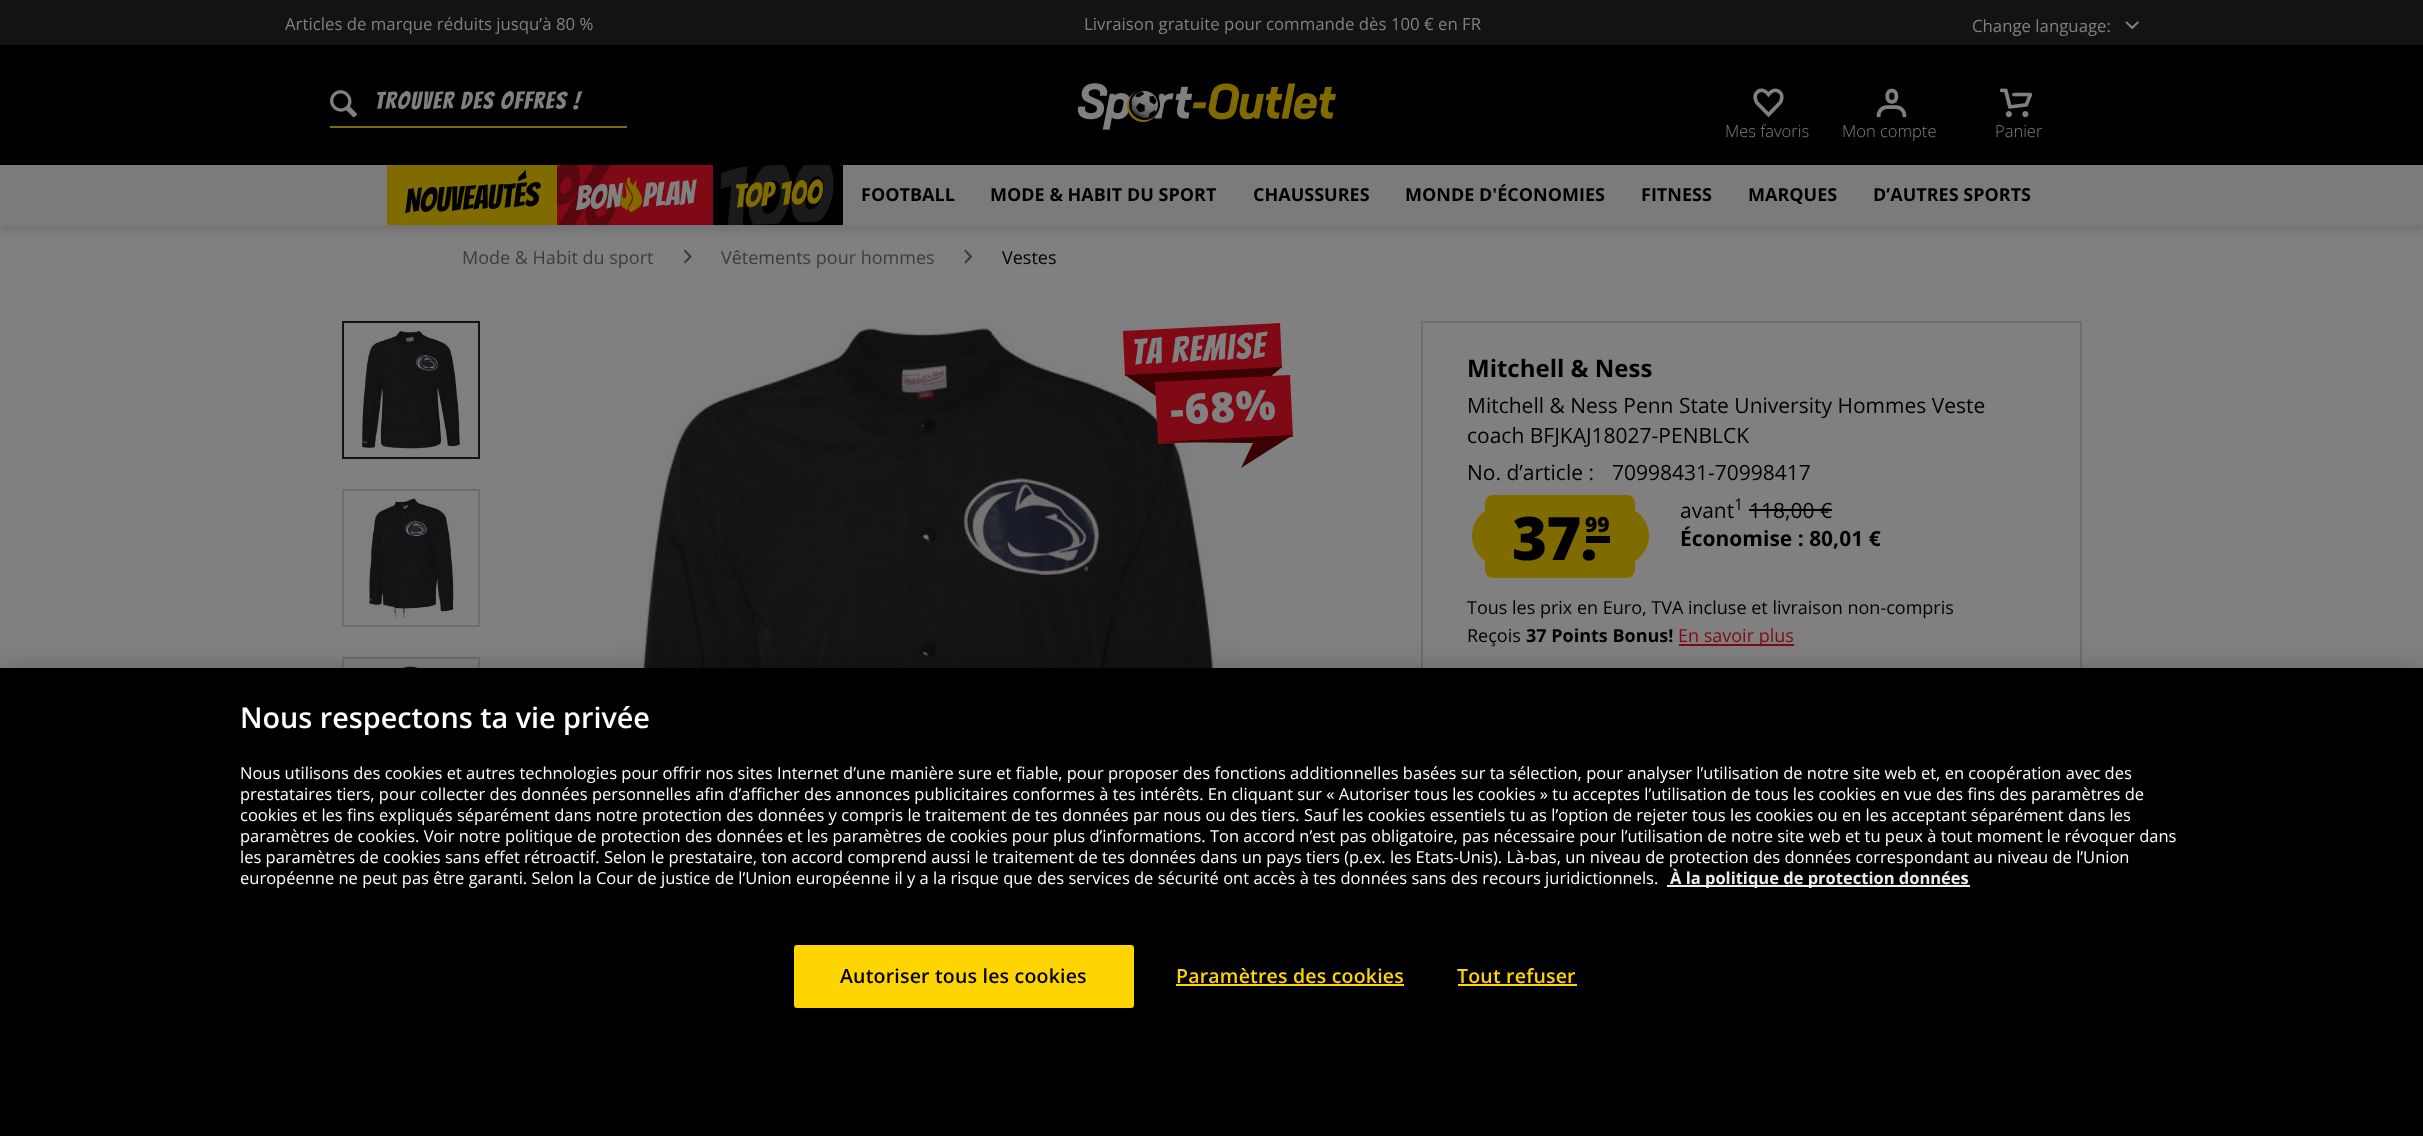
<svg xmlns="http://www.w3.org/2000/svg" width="2423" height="1136">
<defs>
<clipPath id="clip1"><rect x="557" y="165" width="156" height="60"/></clipPath>
</defs>
<rect width="100%" height="100%" fill="#808080"/>
<rect y="171" width="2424" height="60" fill="#0000001a" filter="blur(3px)"/>
<rect y="45" width="2423" height="120" fill="#000"/>
<rect width="2423" height="45" fill="#131313"/>
<text x="285" y="30" style="font-family:Open Sans;font-size:16.8px;fill:#808080">Articles de marque réduits jusqu’à 80 %</text>
<text x="1084" y="30" style="font-family:Open Sans;font-size:16.8px;fill:#808080">Livraison gratuite pour commande dès 100 € en FR</text>
<text x="1972" y="32" style="font-family:Open Sans;font-size:16.8px;fill:#808080">Change language:</text>
<image x="2125" y="21" width="14" height="8" href="media/1.png"/>
<image x="330" y="90" width="27" height="28" href="media/2.png"/>
<rect x="330" y="126" width="297" height="2" fill="#806b00"/>
<text x="375" y="109" style="font-family:Bangers;font-size:24px;letter-spacing:1.5px;fill:#808080">Trouver des offres !</text>
<image x="1077" y="83" width="259" height="47" href="media/3.png"/>
<image x="1753" y="88" width="31" height="30" href="media/4.png"/>
<text x="1725" y="137" style="font-family:Open Sans;font-size:16.5px;font-weight:300;fill:#808080">Mes favoris</text>
<image x="1876" y="88" width="31" height="30" href="media/5.png"/>
<text x="1842" y="137" style="font-family:Open Sans;font-size:16.5px;font-weight:300;fill:#808080">Mon compte</text>
<image x="1999" y="88" width="34" height="30" href="media/6.png"/>
<text x="1995" y="137" style="font-family:Open Sans;font-size:16.5px;font-weight:300;fill:#808080">Panier</text>
<rect y="165" width="2423" height="60" fill="#7b7b7b"/>
<rect x="387" y="165" width="170" height="60" fill="#806b00"/>
<text x="405" y="213" transform="rotate(-3 405 213)" style="font-family:Bangers;font-size:33px;fill:#000">NOUVEAUTÉS</text>
<rect x="557" y="165" width="156" height="60" fill="#7f0915"/>
<g clip-path="url(#clip1)">
<text x="544" y="233" transform="rotate(-3 544 233)" style="font-family:Bangers;font-size:90px;fill:#59070f">%</text>
</g>
<text x="576" y="210" transform="rotate(-3 576 210)" style="font-family:Bangers;font-size:33px;fill:#808080">BON</text>
<image x="620" y="177" width="23" height="35" href="media/7.png"/>
<text x="643" y="207" transform="rotate(-3 643 207)" style="font-family:Bangers;font-size:33px;fill:#808080">PLAN</text>
<rect x="713" y="165" width="130" height="60" fill="#000"/>
<image x="720" y="165" width="114" height="60" href="media/8.png"/>
<text x="734" y="208" transform="rotate(-3 734 208)" style="font-family:Bangers;font-size:33px;fill:#806b00">TOP 100</text>
<text x="861" y="201" style="font-family:Open Sans;font-size:18px;font-weight:bold;fill:#000">FOOTBALL</text>
<text x="990" y="201" style="font-family:Open Sans;font-size:18px;font-weight:bold;fill:#000">MODE &amp; HABIT DU SPORT</text>
<text x="1253" y="201" style="font-family:Open Sans;font-size:18px;font-weight:bold;fill:#000">CHAUSSURES</text>
<text x="1405" y="201" style="font-family:Open Sans;font-size:18px;font-weight:bold;fill:#000">MONDE D'ÉCONOMIES</text>
<text x="1641" y="201" style="font-family:Open Sans;font-size:18px;font-weight:bold;fill:#000">FITNESS</text>
<text x="1748" y="201" style="font-family:Open Sans;font-size:18px;font-weight:bold;fill:#000">MARQUES</text>
<text x="1873" y="201" style="font-family:Open Sans;font-size:18px;font-weight:bold;fill:#000">D’AUTRES SPORTS</text>
<text x="462" y="264" style="font-family:Open Sans;font-size:18px;fill:#3a3c3f">Mode &amp; Habit du sport</text>
<image x="684" y="249" width="8" height="15" href="media/9.png"/>
<text x="721" y="264" style="font-family:Open Sans;font-size:18px;fill:#3a3c3f">Vêtements pour hommes</text>
<image x="964" y="249" width="9" height="15" href="media/10.png"/>
<text x="1002" y="264" style="font-family:Open Sans;font-size:18px;fill:#000">Vestes</text>
<rect x="343" y="322" width="136" height="136" fill="none" stroke="#131313" stroke-width="2"/>
<image x="360" y="330" width="101" height="120" href="media/11.png"/>
<rect x="343" y="490" width="136" height="136" fill="none" stroke="#6d6d73" stroke-width="2"/>
<image x="366" y="498" width="91" height="120" href="media/12.png"/>
<rect x="343" y="658" width="136" height="136" fill="none" stroke="#6d6d73" stroke-width="2"/>
<image x="365" y="666" width="96" height="2" href="media/13.png"/>
<image x="618" y="321" width="619" height="347" href="media/14.png"/>
<path d="M1123 331l157-8l2 45l-157 8z" fill="#7f0915"/>
<text x="1132" y="365" transform="rotate(-3 1132 365)" style="font-family:Bangers;font-size:36px;letter-spacing:1.5px;fill:#808080">Ta remise</text>
<path d="M1125 375l157-8l-75 64z" fill="#3c0101"/>
<path d="M1155 382l135-7l3 62l-135 7z" fill="#7f0915"/>
<text x="1171" y="425" transform="rotate(-3 1171 425)" style="font-family:Open Sans;font-size:42px;font-weight:800;letter-spacing:1px;fill:#808080">-68%</text>
<path d="M1241 468l12-25l-92-1l132-7z" fill="#3c0101"/>
<rect x="1422" y="322" width="659" height="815" fill="none" stroke="#6d6d73" stroke-width="2"/>
<text x="1467" y="377" style="font-family:Open Sans;font-size:24px;font-weight:bold;fill:#000">Mitchell &amp; Ness</text>
<text x="1467" y="413" style="font-family:Open Sans;font-size:21px;fill:#000">Mitchell &amp; Ness Penn State University Hommes Veste</text>
<text x="1467" y="443" style="font-family:Open Sans;font-size:21px;fill:#000">coach BFJKAJ18027-PENBLCK</text>
<text x="1467" y="480" style="font-family:Open Sans;font-size:21px;fill:#000">No. d’article :</text>
<text x="1612" y="480" style="font-family:Open Sans;font-size:21px;fill:#000">70998431-70998417</text>
<rect x="1485" y="495" width="150" height="83" rx="8" fill="#806b00"/>
<path d="M1472 536c0-17 13-30 30-30h30v60h-30c-17 0-30-14-30-30z" fill="#806b00"/>
<path d="M1649 536c0 16-14 30-30 30h-30v-60h30c16 0 30 13 30 30z" fill="#806b00"/>
<text x="1512" y="560" style="font-family:Open Sans;font-size:60px;font-weight:800;letter-spacing:-1px;fill:#000">37.</text>
<rect x="1586" y="536" width="24" height="7" fill="#000"/>
<text x="1585" y="532" style="font-family:Open Sans;font-size:21px;font-weight:800;fill:#000">99</text>
<text x="1680" y="518" style="font-family:Open Sans;font-size:21px;fill:#000">avant</text>
<text x="1734" y="510" style="font-family:Open Sans;font-size:16px;fill:#000">1</text>
<text x="1749" y="518" style="font-family:Open Sans;font-size:21px;fill:#000">118,00 €</text>
<rect x="1749" y="509" width="83" height="2" fill="#000"/>
<text x="1680" y="546" style="font-family:Open Sans;font-size:21px;font-weight:bold;fill:#000">Économise : 80,01 €</text>
<text x="1467" y="614" style="font-family:Open Sans;font-size:18px;fill:#000">Tous les prix en Euro, TVA incluse et livraison non-compris</text>
<text x="1467" y="642" style="font-family:Open Sans;font-size:18px;fill:#000">Reçois</text>
<text x="1526" y="642" style="font-family:Open Sans;font-size:18px;font-weight:bold;fill:#000">37 Points Bonus!</text>
<rect x="1679" y="644" width="115" height="2" fill="#7f0915"/>
<text x="1678" y="642" style="font-family:Open Sans;font-size:18px;fill:#7f0915">En savoir plus</text>
<rect y="668" width="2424" height="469" fill="#00000033" filter="blur(13.5px)"/>
<rect y="668" width="2423" height="468" fill="#000"/>
<text x="240" y="728" style="font-family:Open Sans;font-size:28.75px;font-weight:600;fill:#fff">Nous respectons ta vie privée</text>
<text x="240" y="779" style="font-family:Open Sans;font-size:16.5px;fill:#fff">Nous utilisons des cookies et autres technologies pour offrir nos sites Internet d’une manière sure et fiable, pour proposer des fonctions additionnelles basées sur ta sélection, pour analyser l’utilisation de notre site web et, en coopération avec des</text>
<text x="240" y="800" style="font-family:Open Sans;font-size:16.5px;fill:#fff">prestataires tiers, pour collecter des données personnelles afin d’afficher des annonces publicitaires conformes à tes intérêts. En cliquant sur « Autoriser tous les cookies » tu acceptes l’utilisation de tous les cookies en vue des fins des paramètres de</text>
<text x="240" y="821" style="font-family:Open Sans;font-size:16.5px;fill:#fff">cookies et les fins expliqués séparément dans notre protection des données y compris le traitement de tes données par nous ou des tiers. Sauf les cookies essentiels tu as l’option de rejeter tous les cookies ou en les acceptant séparément dans les</text>
<text x="240" y="842" style="font-family:Open Sans;font-size:16.5px;fill:#fff">paramètres de cookies. Voir notre politique de protection des données et les paramètres de cookies pour plus d’informations. Ton accord n’est pas obligatoire, pas nécessaire pour l’utilisation de notre site web et tu peux à tout moment le révoquer dans</text>
<text x="240" y="863" style="font-family:Open Sans;font-size:16.5px;fill:#fff">les paramètres de cookies sans effet rétroactif. Selon le prestataire, ton accord comprend aussi le traitement de tes données dans un pays tiers (p.ex. les Etats-Unis). Là-bas, un niveau de protection des données correspondant au niveau de l’Union</text>
<text x="240" y="884" style="font-family:Open Sans;font-size:16.5px;fill:#fff">européenne ne peut pas être garanti. Selon la Cour de justice de l’Union européenne il y a la risque que des services de sécurité ont accès à tes données sans des recours juridictionnels.</text>
<rect x="1667" y="885" width="303" height="2" fill="#ededed"/>
<text x="1670" y="884" style="font-family:Open Sans;font-size:16.5px;font-weight:bold;fill:#ededed">À la politique de protection données</text>
<rect x="795" y="946" width="338" height="61" rx="2" fill="#ffd500" stroke="#ffd500" stroke-width="2"/>
<text x="840" y="983" style="font-family:Open Sans;font-size:19.5px;font-weight:600;letter-spacing:0.2px;fill:#000">Autoriser tous les cookies</text>
<text x="1176" y="983" style="font-family:Open Sans;font-size:19.5px;font-weight:600;letter-spacing:0.2px;fill:#ffd500">Paramètres des cookies</text>
<rect x="1176" y="984" width="228" height="2" fill="#ffd500"/>
<text x="1457" y="983" style="font-family:Open Sans;font-size:19.5px;font-weight:600;letter-spacing:0.2px;fill:#ffd500">Tout refuser</text>
<rect x="1458" y="984" width="119" height="2" fill="#ffd500"/>
</svg>
